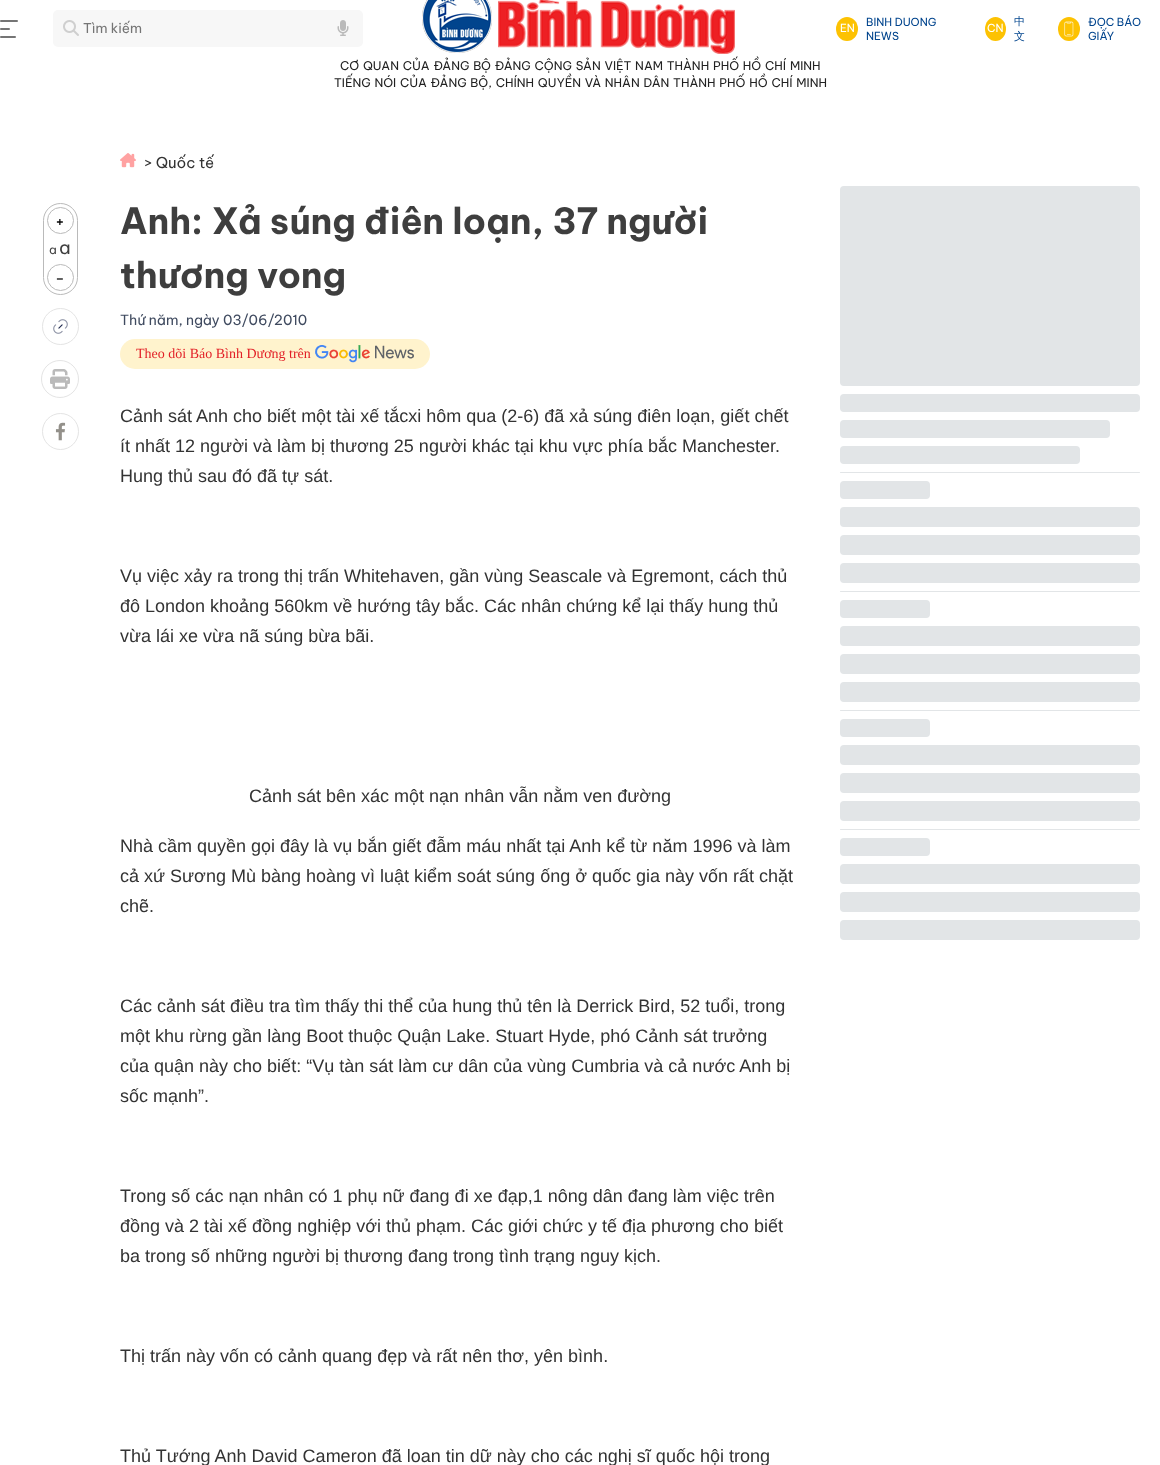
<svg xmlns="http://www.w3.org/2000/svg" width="1160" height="1465">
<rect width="100%" height="100%" fill="#fff"/>
<rect y="20" width="18" height="2" rx="1" fill="#757575"/>
<rect y="28" width="10" height="2" rx="1" fill="#757575"/>
<rect y="36" width="16" height="2" rx="1" fill="#757575"/>
<rect x="53" y="10" width="310" height="37" rx="5" fill="#f7f7f7"/>
<image x="63" y="20" width="16" height="16" href="media/1.png"/>
<text x="83" y="33" style="font-family:Be Vietnam Pro;font-size:13.5px;fill:#757575">Tìm kiếm</text>
<image x="337" y="20" width="12" height="16" href="media/2.png"/>
<ellipse cx="847" cy="29" rx="11" ry="12" fill="#fdc202"/>
<text x="840" y="32" style="font-family:Be Vietnam Pro;font-size:11px;fill:#fff">EN</text>
<text x="866" y="26" style="font-family:Be Vietnam Pro;font-size:11px;fill:#01448d">BINH DUONG</text>
<text x="866" y="40" style="font-family:Be Vietnam Pro;font-size:11px;fill:#01448d">NEWS</text>
<ellipse cx="995.5" cy="29" rx="10.5" ry="12" fill="#fdc202"/>
<text x="987" y="32" style="font-family:Be Vietnam Pro;font-size:11px;fill:#fff">CN</text>
<text x="1014" y="25" style="font-family:WenQuanYi Zen Hei;font-size:11px;font-weight:500;fill:#01448d">中</text>
<text x="1014" y="40" style="font-family:WenQuanYi Zen Hei;font-size:11px;font-weight:500;fill:#01448d">文</text>
<ellipse cx="1069" cy="29" rx="11" ry="12" fill="#fdc202"/>
<image x="1064" y="21" width="10" height="16" href="media/3.png"/>
<text x="1088" y="26" style="font-family:Be Vietnam Pro;font-size:11px;fill:#01448d">ĐỌC BÁO</text>
<text x="1088" y="40" style="font-family:Be Vietnam Pro;font-size:11px;fill:#01448d">GIẤY</text>
<image x="422" y="0" width="313" height="54" href="media/4.png"/>
<text x="340" y="70" word-spacing="1" style="font-family:Be Vietnam Pro;font-size:12px;fill:#222">CƠ QUAN CỦA ĐẢNG BỘ ĐẢNG CỘNG SẢN VIỆT NAM THÀNH PHỐ HỒ CHÍ MINH</text>
<text x="334" y="87" word-spacing="1" style="font-family:Be Vietnam Pro;font-size:12px;fill:#222">TIẾNG NÓI CỦA ĐẢNG BỘ, CHÍNH QUYỀN VÀ NHÂN DÂN THÀNH PHỐ HỒ CHÍ MINH</text>
<rect x="43.5" y="203.5" width="34" height="91" rx="17" fill="none" stroke="#bababa"/>
<circle cx="60.5" cy="220.5" r="13" fill="none" stroke="#bababa"/>
<text x="55" y="227" style="font-family:Be Vietnam Pro;font-size:16px;fill:#000">+</text>
<text x="49" y="254" style="font-family:Be Vietnam Pro;font-size:12px;fill:#3e3e3e">a</text>
<text x="59" y="254" style="font-family:Be Vietnam Pro;font-size:18px;fill:#3e3e3e">a</text>
<circle cx="60.5" cy="277.5" r="13" fill="none" stroke="#bababa"/>
<text x="55" y="284" style="font-family:Be Vietnam Pro;font-size:16px;fill:#000">-</text>
<circle cx="60.5" cy="326.5" r="18" fill="none" stroke="#e4e4e4"/>
<image x="53" y="319" width="15" height="15" href="media/5.png"/>
<circle cx="60" cy="379" r="18.5" fill="none" stroke="#e4e4e4"/>
<image x="50" y="369" width="20" height="20" href="media/6.png"/>
<circle cx="60.5" cy="431.5" r="18" fill="none" stroke="#e4e4e4"/>
<image x="55" y="422" width="11" height="19" href="media/7.png"/>
<image x="120" y="153" width="16" height="15" href="media/8.png"/>
<text x="144" y="168" style="font-family:Be Vietnam Pro;font-size:15px;fill:#333">&gt; Quốc tế</text>
<text x="120" y="234" style="font-family:Be Vietnam Pro;font-size:36px;font-weight:bold;fill:#3e3e3e">Anh: Xả súng điên loạn, 37 người</text>
<text x="120" y="288" style="font-family:Be Vietnam Pro;font-size:36px;font-weight:bold;fill:#3e3e3e">thương vong</text>
<text x="120" y="325" style="font-family:Be Vietnam Pro;font-size:14px;fill:#3f4a5f">Thứ năm, ngày 03/06/2010</text>
<rect x="120" y="339" width="310" height="30" rx="15" fill="#fff3cd"/>
<text x="136" y="358" style="font-family:Liberation Serif;font-size:14px;fill:#e21f26">Theo dõi Báo Bình Dương trên</text>
<image x="315" y="345" width="99" height="18" href="media/9.png"/>
<text x="120" y="422" style="font-family:Liberation Sans;font-size:18px;fill:#333">Cảnh sát Anh cho biết một tài xế tắcxi hôm qua (2-6) đã xả súng điên loạn, giết chết</text>
<text x="120" y="452" style="font-family:Liberation Sans;font-size:18px;fill:#333">ít nhất 12 người và làm bị thương 25 người khác tại khu vực phía bắc Manchester.</text>
<text x="120" y="482" style="font-family:Liberation Sans;font-size:18px;fill:#333">Hung thủ sau đó đã tự sát.</text>
<text x="120" y="582" style="font-family:Liberation Sans;font-size:18px;fill:#333">Vụ việc xảy ra trong thị trấn Whitehaven, gần vùng Seascale và Egremont, cách thủ</text>
<text x="120" y="612" style="font-family:Liberation Sans;font-size:18px;fill:#333">đô London khoảng 560km về hướng tây bắc. Các nhân chứng kể lại thấy hung thủ</text>
<text x="120" y="642" style="font-family:Liberation Sans;font-size:18px;fill:#333">vừa lái xe vừa nã súng bừa bãi.</text>
<text x="249" y="802" style="font-family:Liberation Sans;font-size:18px;fill:#333">Cảnh sát bên xác một nạn nhân vẫn nằm ven đường</text>
<text x="120" y="852" style="font-family:Liberation Sans;font-size:18px;fill:#333">Nhà cầm quyền gọi đây là vụ bắn giết đẫm máu nhất tại Anh kể từ năm 1996 và làm</text>
<text x="120" y="882" style="font-family:Liberation Sans;font-size:18px;fill:#333">cả xứ Sương Mù bàng hoàng vì luật kiểm soát súng ống ở quốc gia này vốn rất chặt</text>
<text x="120" y="912" style="font-family:Liberation Sans;font-size:18px;fill:#333">chẽ.</text>
<text x="120" y="1012" style="font-family:Liberation Sans;font-size:18px;fill:#333">Các cảnh sát điều tra tìm thấy thi thể của hung thủ tên là Derrick Bird, 52 tuổi, trong</text>
<text x="120" y="1042" style="font-family:Liberation Sans;font-size:18px;fill:#333">một khu rừng gần làng Boot thuộc Quận Lake. Stuart Hyde, phó Cảnh sát trưởng</text>
<text x="120" y="1072" style="font-family:Liberation Sans;font-size:18px;fill:#333">của quận này cho biết: “Vụ tàn sát làm cư dân của vùng Cumbria và cả nước Anh bị</text>
<text x="120" y="1102" style="font-family:Liberation Sans;font-size:18px;fill:#333">sốc mạnh”.</text>
<text x="120" y="1202" style="font-family:Liberation Sans;font-size:18px;fill:#333">Trong số các nạn nhân có 1 phụ nữ đang đi xe đạp,1 nông dân đang làm việc trên</text>
<text x="120" y="1232" style="font-family:Liberation Sans;font-size:18px;fill:#333">đồng và 2 tài xế đồng nghiệp với thủ phạm. Các giới chức y tế địa phương cho biết</text>
<text x="120" y="1262" style="font-family:Liberation Sans;font-size:18px;fill:#333">ba trong số những người bị thương đang trong tình trạng nguy kịch.</text>
<text x="120" y="1362" style="font-family:Liberation Sans;font-size:18px;fill:#333">Thị trấn này vốn có cảnh quang đẹp và rất nên thơ, yên bình.</text>
<text x="120" y="1462" style="font-family:Liberation Sans;font-size:18px;fill:#333">Thủ Tướng Anh David Cameron đã loan tin dữ này cho các nghị sĩ quốc hội trong</text>
<rect x="840" y="186" width="300" height="200" rx="4" fill="#e2e5e7"/>
<rect x="840" y="394" width="300" height="18" rx="4" fill="#e2e5e7"/>
<rect x="840" y="420" width="270" height="18" rx="4" fill="#e2e5e7"/>
<rect x="840" y="446" width="240" height="18" rx="4" fill="#e2e5e7"/>
<rect x="840" y="472" width="300" height="1" rx="0.5" fill="#e2e5e7"/>
<rect x="840" y="481" width="90" height="18" rx="4" fill="#e2e5e7"/>
<rect x="840" y="507" width="300" height="20" rx="4" fill="#e2e5e7"/>
<rect x="840" y="535" width="300" height="20" rx="4" fill="#e2e5e7"/>
<rect x="840" y="563" width="300" height="20" rx="4" fill="#e2e5e7"/>
<rect x="840" y="591" width="300" height="1" rx="0.5" fill="#e2e5e7"/>
<rect x="840" y="600" width="90" height="18" rx="4" fill="#e2e5e7"/>
<rect x="840" y="626" width="300" height="20" rx="4" fill="#e2e5e7"/>
<rect x="840" y="654" width="300" height="20" rx="4" fill="#e2e5e7"/>
<rect x="840" y="682" width="300" height="20" rx="4" fill="#e2e5e7"/>
<rect x="840" y="710" width="300" height="1" rx="0.5" fill="#e2e5e7"/>
<rect x="840" y="719" width="90" height="18" rx="4" fill="#e2e5e7"/>
<rect x="840" y="745" width="300" height="20" rx="4" fill="#e2e5e7"/>
<rect x="840" y="773" width="300" height="20" rx="4" fill="#e2e5e7"/>
<rect x="840" y="801" width="300" height="20" rx="4" fill="#e2e5e7"/>
<rect x="840" y="829" width="300" height="1" rx="0.5" fill="#e2e5e7"/>
<rect x="840" y="838" width="90" height="18" rx="4" fill="#e2e5e7"/>
<rect x="840" y="864" width="300" height="20" rx="4" fill="#e2e5e7"/>
<rect x="840" y="892" width="300" height="20" rx="4" fill="#e2e5e7"/>
<rect x="840" y="920" width="300" height="20" rx="4" fill="#e2e5e7"/>
</svg>
